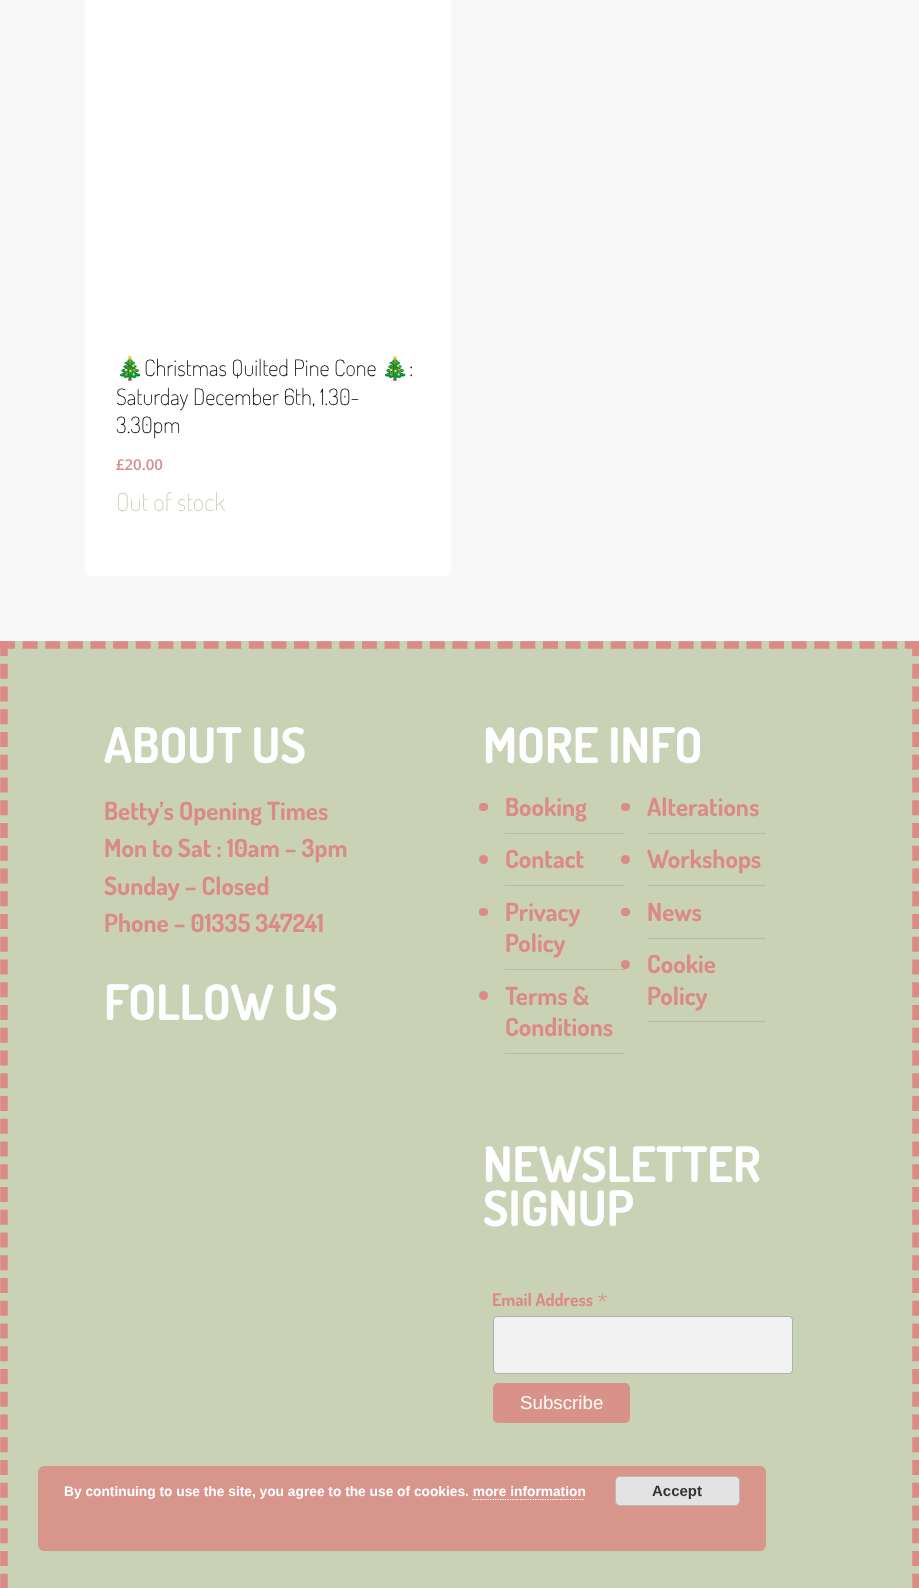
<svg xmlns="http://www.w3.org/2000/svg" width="919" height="1588">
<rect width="100%" height="100%" fill="#cad2b5"/>
<rect width="919" height="641" fill="#f8f8f8"/>
<rect x="85" y="-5" width="366" height="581" rx="5" fill="#fff"/>
<text x="116" y="376" style="font-family:Noto Color Emoji;font-size:22.5px;fill:#000">🎄</text>
<text x="144" y="376" style="font-family:Dosis;font-size:22.5px;font-weight:200;fill:#000">Christmas Quilted Pine Cone</text>
<text x="381" y="376" style="font-family:Noto Color Emoji;font-size:22.5px;fill:#000">🎄</text>
<text x="409" y="376" style="font-family:Dosis;font-size:22.5px;font-weight:200;fill:#000">:</text>
<text x="116" y="405" style="font-family:Dosis;font-size:22.5px;font-weight:200;fill:#000">Saturday December 6th, 1.30-</text>
<text x="116" y="433" style="font-family:Dosis;font-size:22.5px;font-weight:200;fill:#000">3.30pm</text>
<text x="116" y="470" style="font-family:Open Sans;font-size:15px;font-weight:600;fill:#db8a85">£20.00</text>
<text x="116" y="511" style="font-family:Dosis;font-size:25px;font-weight:200;fill:#cad2b5">Out of stock</text>
<path d="M0 645h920" fill="none" stroke="#db8a85" stroke-width="7.5" stroke-dasharray="15 7.62"/>
<path d="M916 641v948" fill="none" stroke="#db8a85" stroke-width="7.5" stroke-dasharray="15 7.75"/>
<path d="M4 641v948" fill="none" stroke="#db8a85" stroke-width="7.5" stroke-dasharray="15 7.75"/>
<text x="104" y="763" style="font-family:Dosis;font-size:48.75px;font-weight:bold;fill:#fff">ABOUT US</text>
<text x="104" y="820" style="font-family:Dosis;font-size:25px;font-weight:bold;fill:#db8a85">Betty’s Opening Times</text>
<text x="104" y="857" style="font-family:Dosis;font-size:25px;font-weight:bold;fill:#db8a85">Mon to Sat : 10am – 3pm</text>
<text x="104" y="895" style="font-family:Dosis;font-size:25px;font-weight:bold;fill:#db8a85">Sunday – Closed</text>
<text x="104" y="932" style="font-family:Dosis;font-size:25px;font-weight:bold;fill:#db8a85">Phone – 01335 347241</text>
<text x="104" y="1020" style="font-family:Dosis;font-size:48.75px;font-weight:bold;fill:#fff">FOLLOW US</text>
<text x="483" y="763" style="font-family:Dosis;font-size:48.75px;font-weight:bold;fill:#fff">MORE INFO</text>
<rect x="505" y="833" width="120" height="1" fill="#b6bda3"/>
<rect x="479" y="803" width="9" height="8" rx="4" fill="#db8a85"/>
<text x="505" y="816" style="font-family:Dosis;font-size:25px;font-weight:bold;fill:#db8a85">Booking</text>
<rect x="505" y="885" width="120" height="1" fill="#b6bda3"/>
<circle cx="483.5" cy="859.5" r="4.5" fill="#db8a85"/>
<text x="505" y="868" style="font-family:Dosis;font-size:25px;font-weight:bold;fill:#db8a85">Contact</text>
<rect x="505" y="969" width="120" height="1" fill="#b6bda3"/>
<rect x="479" y="908" width="9" height="8" rx="4" fill="#db8a85"/>
<text x="505" y="921" style="font-family:Dosis;font-size:25px;font-weight:bold;fill:#db8a85">Privacy</text>
<text x="505" y="952" style="font-family:Dosis;font-size:25px;font-weight:bold;fill:#db8a85">Policy</text>
<rect x="505" y="1053" width="120" height="1" fill="#b6bda3"/>
<circle cx="483.5" cy="995.5" r="4.5" fill="#db8a85"/>
<text x="505" y="1005" style="font-family:Dosis;font-size:25px;font-weight:bold;fill:#db8a85">Terms &amp;</text>
<text x="505" y="1036" style="font-family:Dosis;font-size:25px;font-weight:bold;fill:#db8a85">Conditions</text>
<rect x="648" y="833" width="118" height="1" fill="#b6bda3"/>
<rect x="621" y="803" width="9" height="8" rx="4" fill="#db8a85"/>
<text x="647" y="816" style="font-family:Dosis;font-size:25px;font-weight:bold;fill:#db8a85">Alterations</text>
<rect x="648" y="885" width="118" height="1" fill="#b6bda3"/>
<circle cx="625.5" cy="859.5" r="4.5" fill="#db8a85"/>
<text x="647" y="868" style="font-family:Dosis;font-size:25px;font-weight:bold;fill:#db8a85">Workshops</text>
<rect x="648" y="938" width="118" height="1" fill="#b6bda3"/>
<rect x="621" y="908" width="9" height="8" rx="4" fill="#db8a85"/>
<text x="647" y="921" style="font-family:Dosis;font-size:25px;font-weight:bold;fill:#db8a85">News</text>
<rect x="648" y="1021" width="118" height="1" fill="#b6bda3"/>
<circle cx="625.5" cy="964.5" r="4.5" fill="#db8a85"/>
<text x="647" y="973" style="font-family:Dosis;font-size:25px;font-weight:bold;fill:#db8a85">Cookie</text>
<text x="647" y="1005" style="font-family:Dosis;font-size:25px;font-weight:bold;fill:#db8a85">Policy</text>
<text x="483" y="1182" style="font-family:Dosis;font-size:48.75px;font-weight:bold;fill:#fff">NEWSLETTER</text>
<text x="483" y="1226" style="font-family:Dosis;font-size:48.75px;font-weight:bold;fill:#fff">SIGNUP</text>
<text x="492" y="1306" style="font-family:Dosis;font-size:17.5px;font-weight:bold;fill:#db8a85">Email Address</text>
<text x="597" y="1312" style="font-family:Dosis;font-size:26px;font-weight:200;fill:#db8a85">*</text>
<rect x="493.5" y="1316.5" width="299" height="57" rx="3.5" fill="#f1f1f1" stroke="#abb0b2"/>
<rect x="493" y="1383" width="137" height="40" rx="5" fill="#d9928a"/>
<text x="520" y="1409" style="font-family:Liberation Sans;font-size:18.75px;fill:#fafbf8">Subscribe</text>
<rect x="38" y="1466" width="728" height="85" rx="6" fill="#d8958c"/>
<text x="64" y="1496" style="font-family:Liberation Sans;font-size:13.75px;font-weight:bold;fill:#fff">By continuing to use the site, you agree to the use of cookies. more information</text>
<rect x="615.5" y="1476.5" width="124" height="29" rx="4.5" fill="#e3e3e3" stroke="#bbb"/>
<text x="652" y="1496" style="font-family:Liberation Sans;font-size:15px;font-weight:bold;fill:#333">Accept</text>
<path d="M472.5 1499.5h112.5" fill="none" stroke="#fff" stroke-width="1.2" stroke-dasharray="1.25 1.25"/>
</svg>
